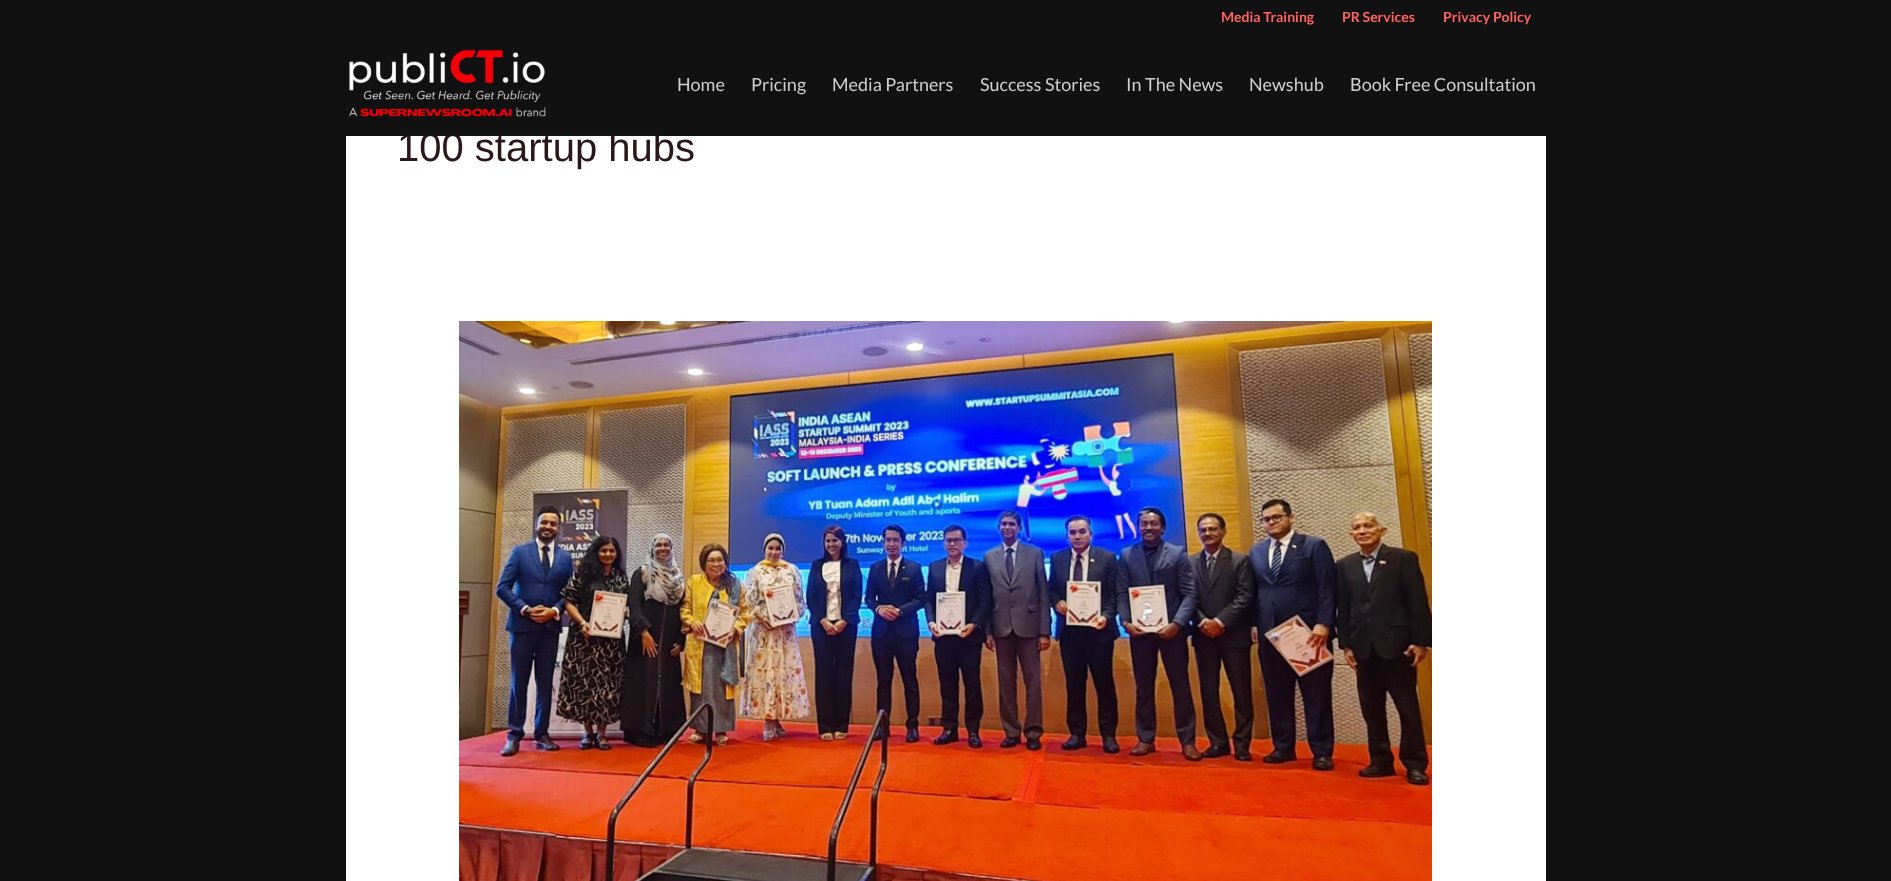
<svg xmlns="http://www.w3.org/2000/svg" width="1891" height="881">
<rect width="100%" height="100%" fill="#111"/>
<text x="1221" y="22" style="font-family:Lato;font-size:14px;font-weight:bold;fill:#ff6461">Media Training</text>
<text x="1342" y="22" style="font-family:Lato;font-size:14px;font-weight:bold;fill:#ff6461">PR Services</text>
<text x="1443" y="22" style="font-family:Lato;font-size:14px;font-weight:bold;fill:#ff6461">Privacy Policy</text>
<rect x="346" y="136" width="1200" height="745" fill="#fff"/>
<text x="397" y="161" style="font-family:Liberation Sans;font-size:40px;fill:#2b161b">100 startup hubs</text>
<rect x="403" y="132" width="256" height="4" fill="#121212"/>
<image x="349" y="49" width="197" height="68" href="media/1.png"/>
<text x="677" y="91" style="font-family:Lato;font-size:18px;fill:#cfcfcf">Home</text>
<text x="751" y="91" style="font-family:Lato;font-size:18px;fill:#cfcfcf">Pricing</text>
<text x="832" y="91" style="font-family:Lato;font-size:18px;fill:#cfcfcf">Media Partners</text>
<text x="980" y="91" style="font-family:Lato;font-size:18px;fill:#cfcfcf">Success Stories</text>
<text x="1126" y="91" style="font-family:Lato;font-size:18px;fill:#cfcfcf">In The News</text>
<text x="1249" y="91" style="font-family:Lato;font-size:18px;fill:#cfcfcf">Newshub</text>
<text x="1350" y="91" style="font-family:Lato;font-size:18px;fill:#cfcfcf">Book Free Consultation</text>
<image x="459" y="321" width="973" height="560" href="media/2.png"/>
</svg>
